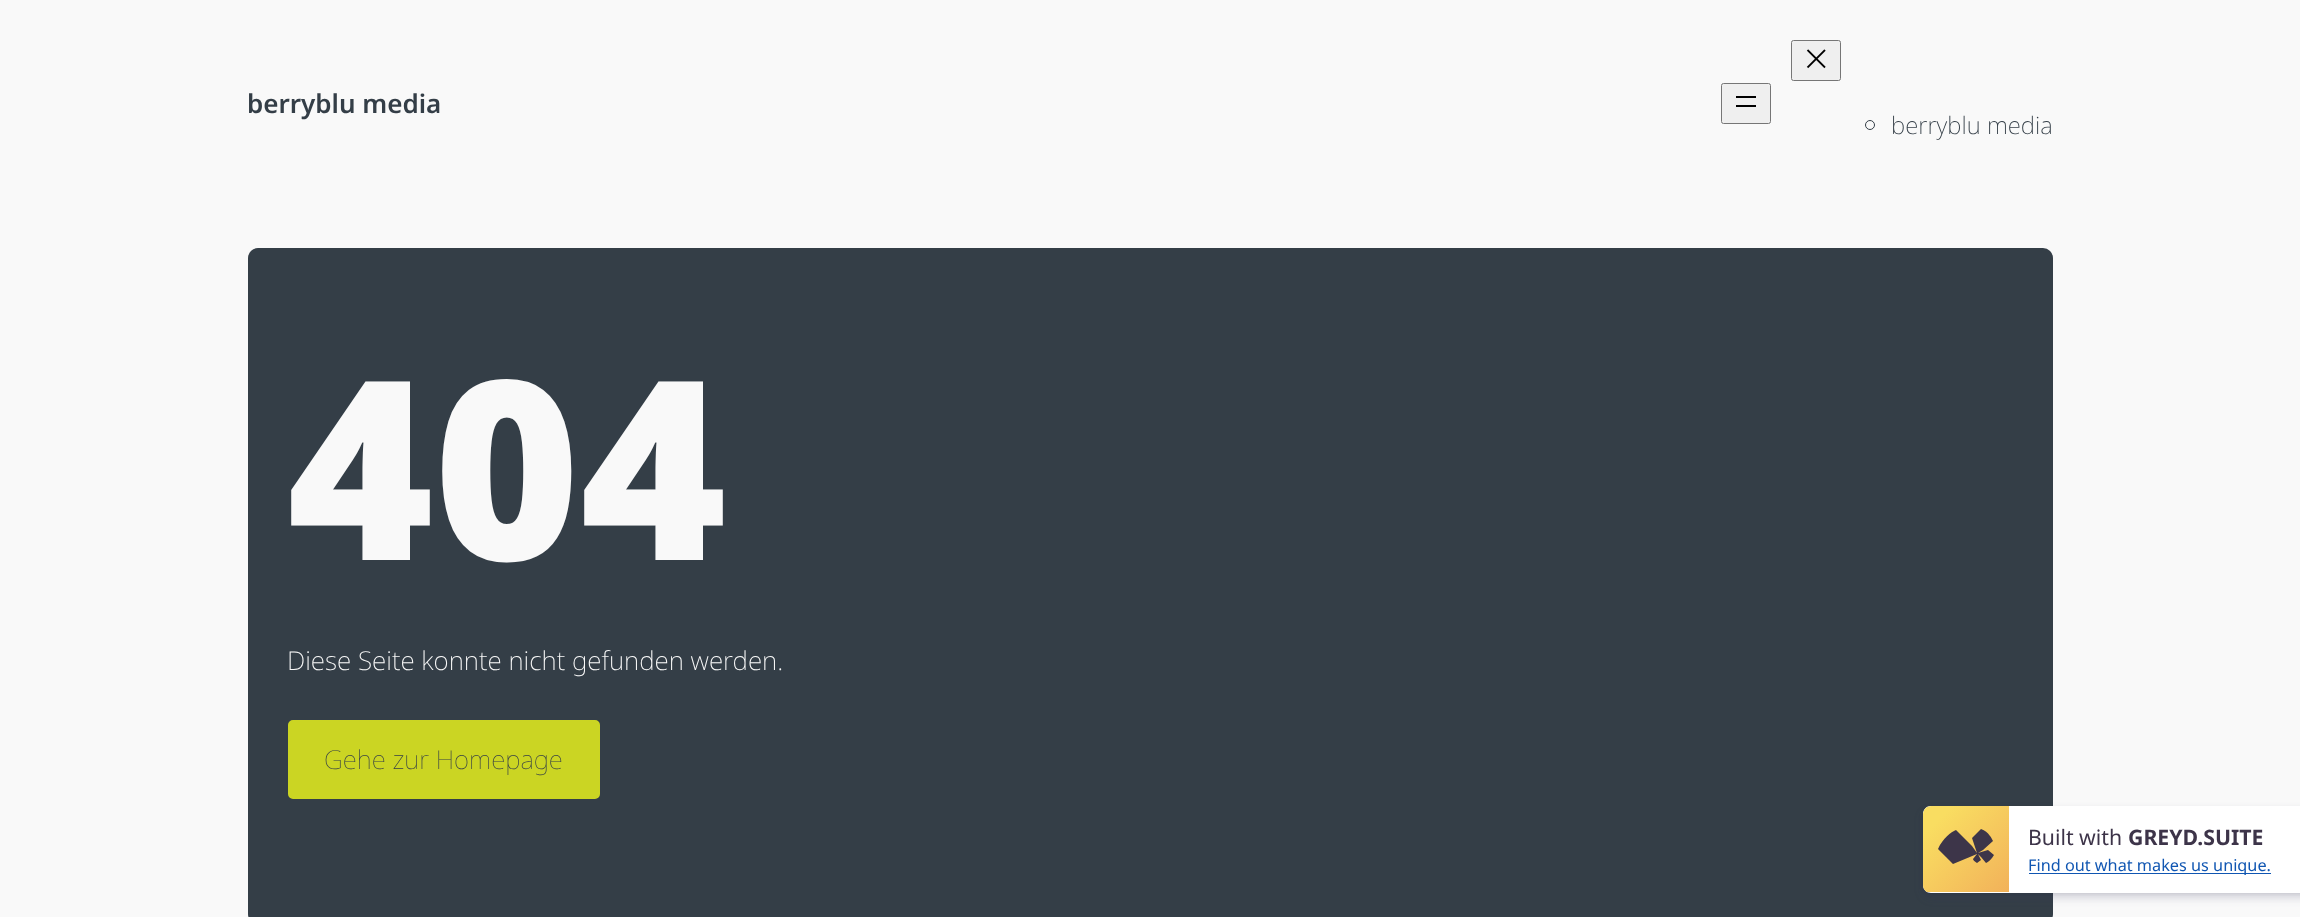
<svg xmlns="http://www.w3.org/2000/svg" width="2300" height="917">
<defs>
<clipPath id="clip1"><path d="M1931 806h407v87h-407c-4.5 0-8-3.5-8-8v-71c0-4.5 3.5-8 8-8z"/></clipPath>
<linearGradient id="g1" gradientUnits="userSpaceOnUse" x1="1937" y1="821" x2="2008" y2="891"><stop offset="0" stop-color="#f9dd61"/><stop offset="1" stop-color="#f2b25a"/></linearGradient>
</defs>
<rect width="100%" height="100%" fill="#f9f9f9"/>
<text x="247" y="113" style="font-family:Noto Sans;font-size:26px;font-weight:600;fill:#343e47">berryblu media</text>
<rect x="1721.5" y="83.5" width="49" height="40" rx="2" fill="#efefef" stroke="#767676"/>
<rect x="1736" y="96" width="20" height="2" fill="#000"/>
<rect x="1736" y="105" width="20" height="2" fill="#000"/>
<rect x="1791.5" y="40.5" width="49" height="40" rx="2" fill="#efefef" stroke="#767676"/>
<image x="1806" y="49" width="20" height="20" href="media/1.png"/>
<circle cx="1870" cy="125" r="4.5" fill="none" stroke="#343e47"/>
<text x="1891" y="134" style="font-family:Noto Sans;font-size:24px;font-weight:200;fill:#343e47">berryblu media</text>
<rect x="248" y="248" width="1805" height="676" rx="10" fill="#343e47"/>
<rect x="1923" y="808" width="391" height="86" rx="8" fill="#00000014" filter="blur(2px)"/>
<rect x="1923" y="811" width="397" height="87" rx="8" fill="#32325d2e" filter="blur(4px)"/>
<path d="M1931 806h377v87h-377c-4.5 0-8-3.5-8-8v-71c0-4.5 3.5-8 8-8z" fill="#fff"/>
<g clip-path="url(#clip1)">
<path d="M1931 806h78v86h-86v-78c0-4.5 3.5-8 8-8z" fill="url(#g1)"/>
</g>
<path d="M1988 850l6 5c-2 4-6 7-8 8l-5-6l-3-3l3 6l-4 3c-2-1-4-3-4-4l4-5l-24 10l-15-15c5-11 13-17 18-19l16 16l5 7l-5-15l9-9c8 3 11 10 12 12l-10 9l-5 3z" fill="#3d3549" fill-rule="evenodd"/>
<text x="2028" y="845" style="font-family:Noto Sans;font-size:21.25px;fill:#3d3449">Built with</text>
<text x="2128" y="845" style="font-family:Noto Sans;font-size:21.25px;font-weight:bold;fill:#3d3449">GREYD.SUITE</text>
<rect x="2029" y="873" width="242" height="1" fill="#1056b2"/>
<text x="2028" y="871" style="font-family:Noto Sans;font-size:16.25px;fill:#1056b2">Find out what makes us unique.</text>
<text x="287" y="560" style="font-family:Noto Sans;font-size:250px;font-weight:900;fill:#f9f9f9">404</text>
<text x="287" y="670" style="font-family:Noto Sans;font-size:26px;font-weight:200;fill:#f9f9f9">Diese Seite konnte nicht gefunden werden.</text>
<rect x="289.5" y="721.5" width="309" height="76" rx="3.5" fill="#cbd523" stroke="#cbd523" stroke-width="3"/>
<text x="324" y="769" style="font-family:Noto Sans;font-size:26px;font-weight:100;fill:#343e47">Gehe zur Homepage</text>
</svg>
